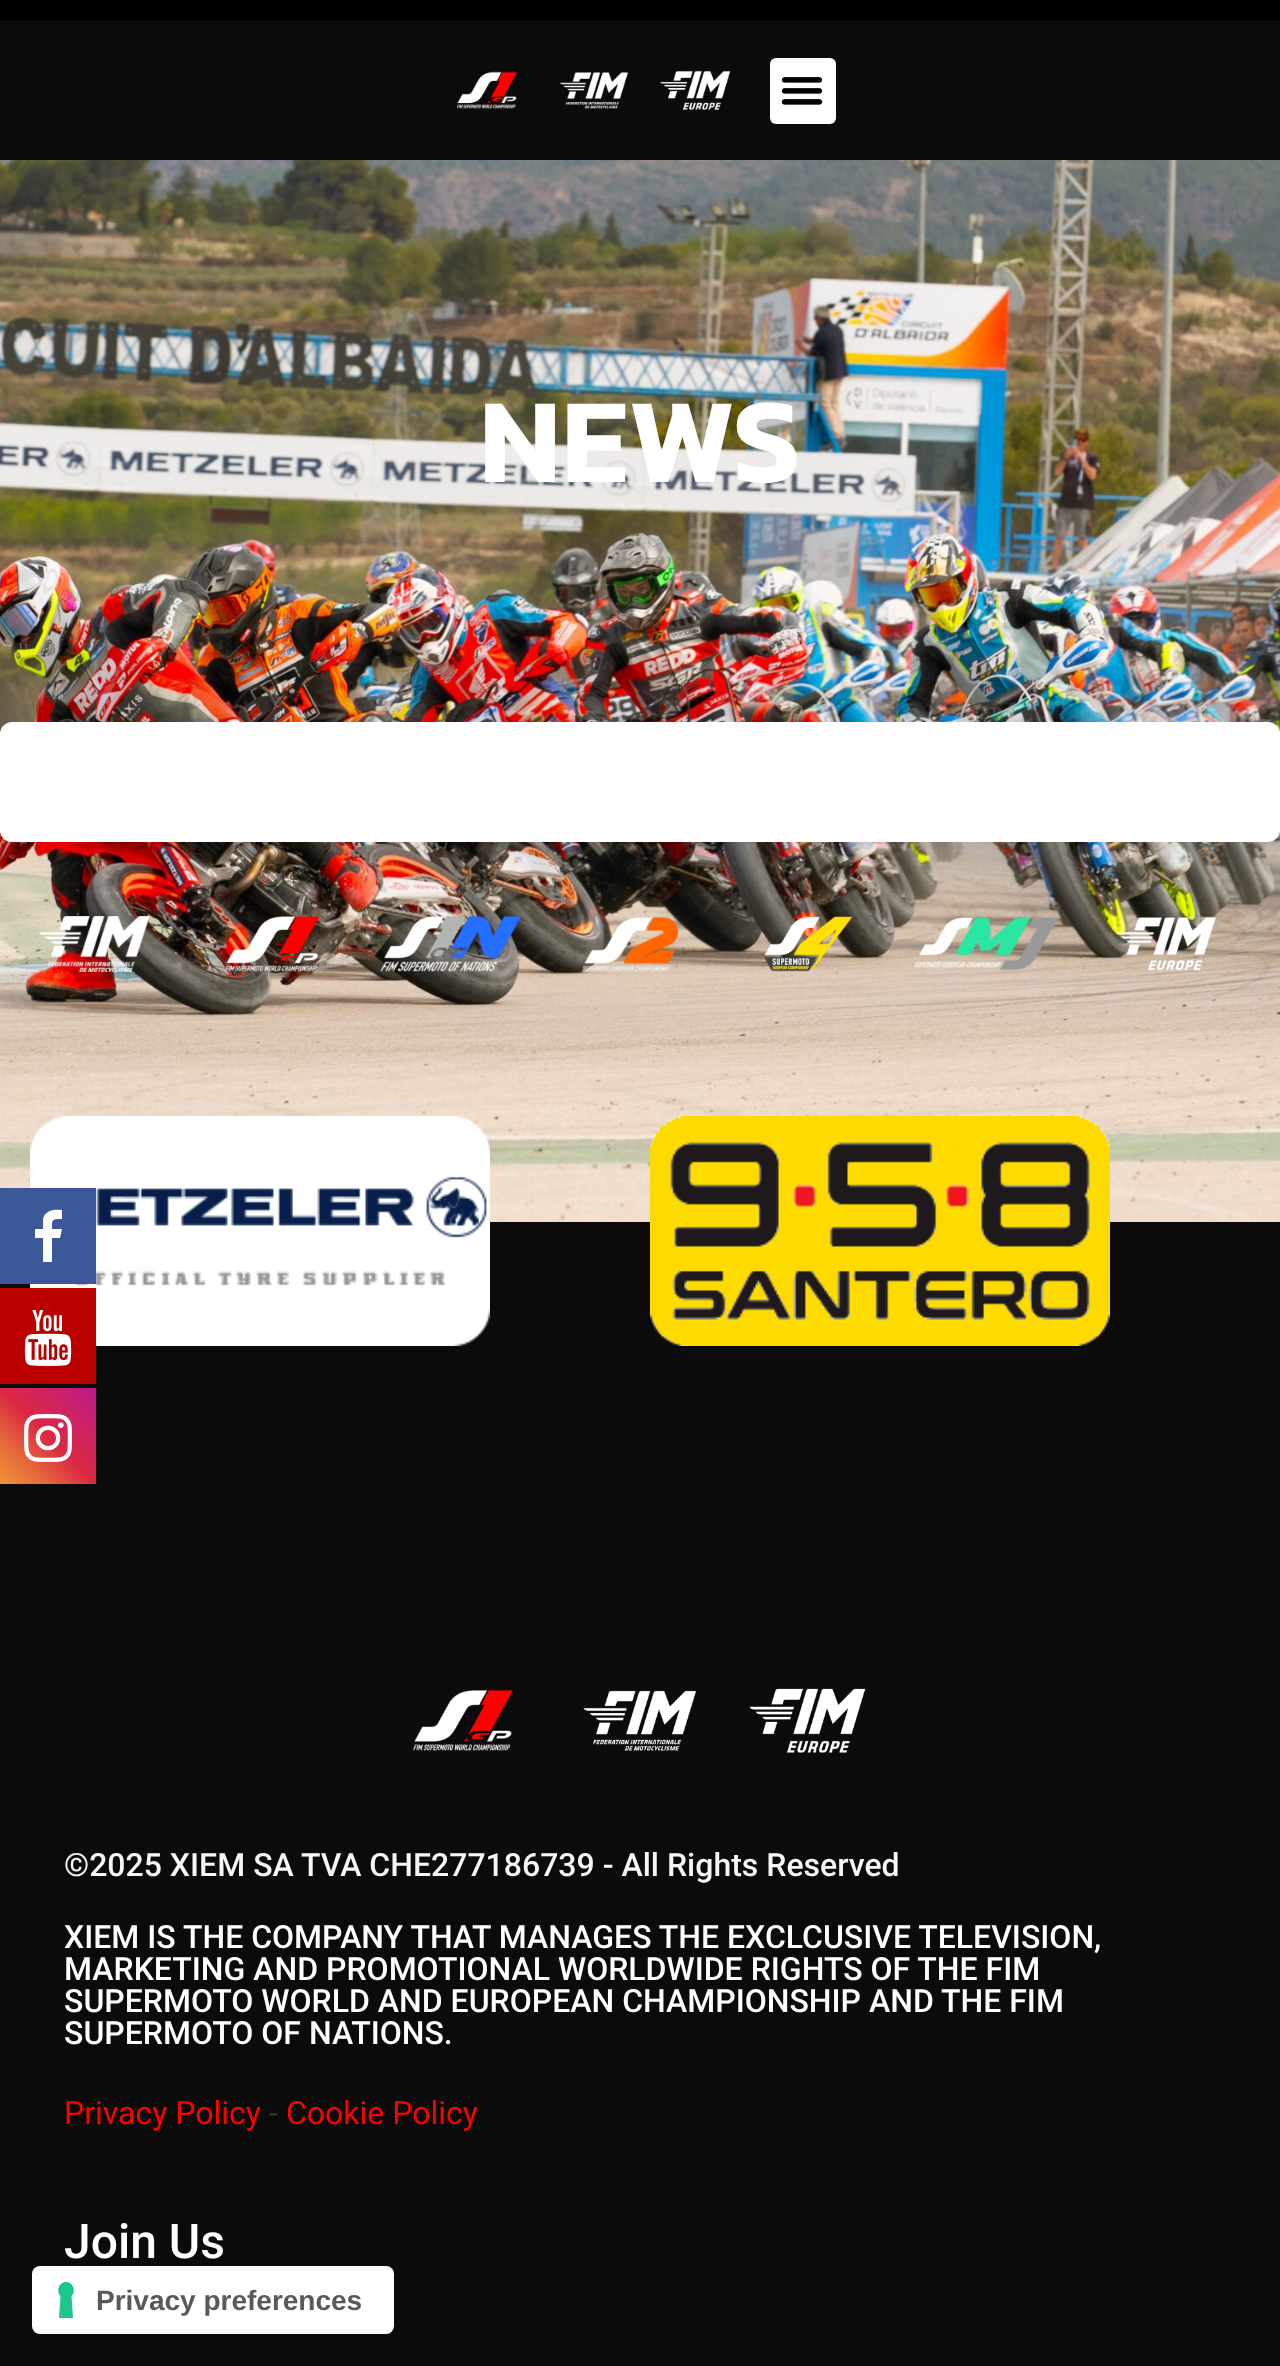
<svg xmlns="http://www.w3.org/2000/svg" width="1280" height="2366">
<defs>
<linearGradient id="g1" gradientUnits="userSpaceOnUse" x1="0" y1="1484" x2="96" y2="1388"><stop offset="0" stop-color="#f09433"/><stop offset="0.25" stop-color="#e6683c"/><stop offset="0.5" stop-color="#dc2743"/><stop offset="0.75" stop-color="#cc2366"/><stop offset="1" stop-color="#bc1888"/></linearGradient>
</defs>
<rect width="100%" height="100%" fill="#0b0b0b"/>
<rect width="1280" height="20" fill="#000"/>
<image x="456" y="71" width="275" height="39" href="media/1.png"/>
<rect x="770" y="58" width="66" height="66" rx="6" fill="#fff"/>
<image x="781" y="77" width="42" height="28" href="media/2.png"/>
<image x="0" y="160" width="1280" height="1062" href="media/3.png"/>
<text x="479" y="482" style="font-family:Kanit;font-size:121.5px;font-weight:600;fill:#fff">NEWS</text>
<rect y="722" width="1280" height="120" rx="12" fill="#00000021" filter="blur(30px)"/>
<rect y="722" width="1280" height="120" rx="12" fill="#fff"/>
<image x="30" y="1116" width="460" height="230" href="media/13.png"/>
<rect y="1188" width="96" height="96" fill="#3b5998"/>
<path d="M62 1210v9c-10 0-10 0-10 10h10l-2 9h-8v24h-9v-24h-8v-9h8v-10c2-9 11-10 19-9z" fill="#fff"/>
<rect y="1288" width="96" height="96" fill="#b00"/>
<image x="24" y="1310" width="48" height="56" href="media/4.png"/>
<rect y="1388" width="96" height="96" fill="url(#g1)"/>
<image x="24" y="1414" width="48" height="48" href="media/5.png"/>
<image x="38" y="916" width="112" height="56" href="media/6.png"/>
<image x="225" y="916" width="95" height="56" href="media/7.png"/>
<image x="380" y="916" width="142" height="56" href="media/8.png"/>
<image x="582" y="916" width="97" height="56" href="media/9.png"/>
<image x="764" y="916" width="89" height="56" href="media/10.png"/>
<image x="914" y="917" width="144" height="54" href="media/11.png"/>
<image x="1115" y="917" width="101" height="54" href="media/12.png"/>
<image x="650" y="1116" width="460" height="230" href="media/14.png"/>
<image x="413" y="1688" width="453" height="65" href="media/15.png"/>
<text x="64" y="1876" style="font-family:Roboto;font-size:32px;font-weight:500;fill:#f6f6f6">©2025 XIEM SA TVA CHE277186739 - All Rights Reserved</text>
<text x="64" y="1948" style="font-family:Roboto;font-size:32px;font-weight:500;fill:#fff">XIEM IS THE COMPANY THAT MANAGES THE EXCLCUSIVE TELEVISION,</text>
<text x="64" y="1980" style="font-family:Roboto;font-size:32px;font-weight:500;fill:#fff">MARKETING AND PROMOTIONAL WORLDWIDE RIGHTS OF THE FIM</text>
<text x="64" y="2012" style="font-family:Roboto;font-size:32px;font-weight:500;fill:#fff">SUPERMOTO WORLD AND EUROPEAN CHAMPIONSHIP AND THE FIM</text>
<text x="64" y="2044" style="font-family:Roboto;font-size:32px;font-weight:500;fill:#fff">SUPERMOTO OF NATIONS.</text>
<text x="64" y="2124" style="font-family:Roboto;font-size:32px;fill:#f00">Privacy Policy</text>
<text x="269" y="2124" style="font-family:Roboto;font-size:32px;fill:#333">-</text>
<text x="286" y="2124" style="font-family:Roboto;font-size:32px;fill:#f00">Cookie Policy</text>
<text x="64" y="2258" style="font-family:Roboto;font-size:48px;font-weight:500;fill:#fff">Join Us</text>
<rect x="32" y="2266" width="362" height="68" rx="8" fill="#fff"/>
<path d="M66 2282c7 0 10.5 9.5 5.5 14l1.5 22h-14l1.5-22c-5-4.5-1.5-14 5.5-14z" fill="#1cc691" fill-rule="evenodd"/>
<text x="96" y="2310" style="font-family:Liberation Sans;font-size:28px;font-weight:bold;fill:#595959">Privacy preferences</text>
</svg>
